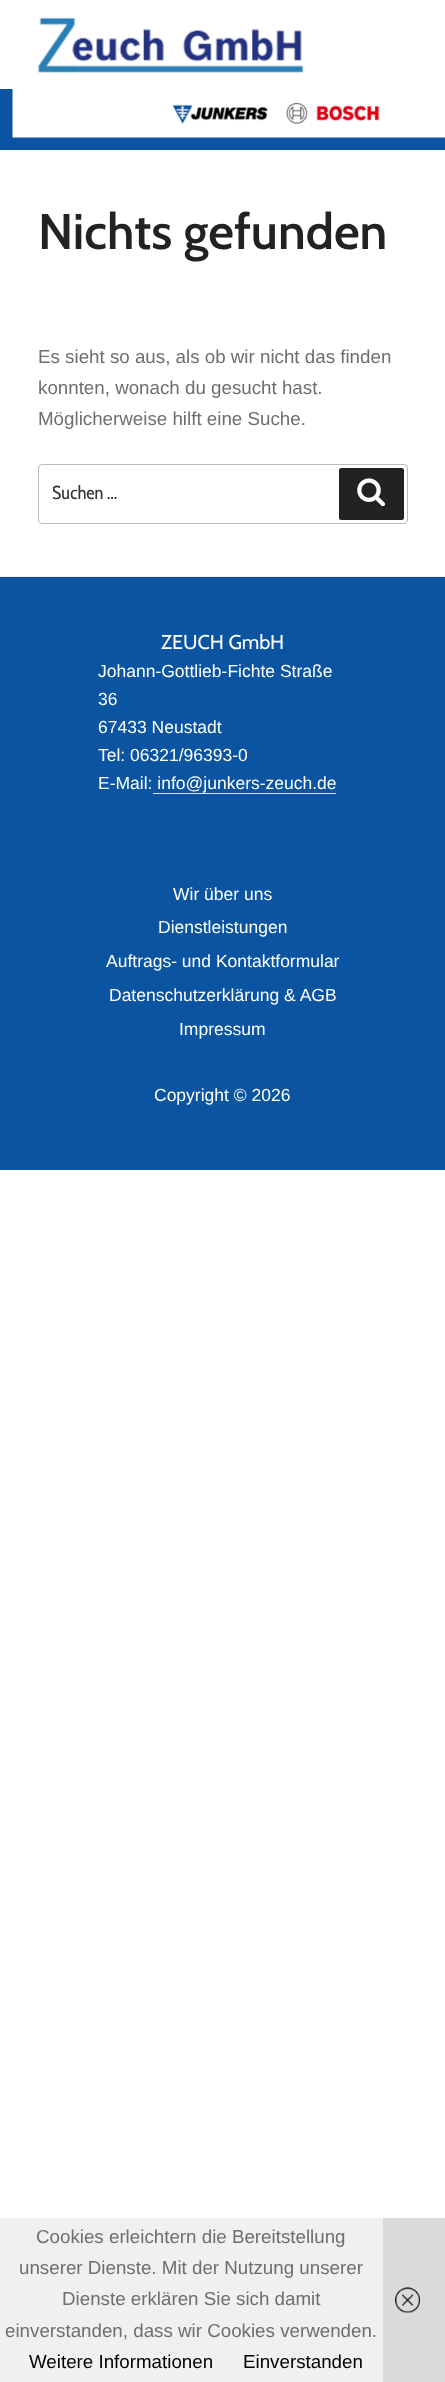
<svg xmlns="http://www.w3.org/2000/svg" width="445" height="2382">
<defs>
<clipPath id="clip1"><rect x="53" y="481" width="336" height="23"/></clipPath>
</defs>
<rect width="100%" height="100%" fill="#fff"/>
<rect y="2218" width="445" height="164" fill="#f0f0f0"/>
<rect y="90" width="445" height="60" fill="#0b54a2"/>
<rect y="89" width="13" height="1" fill="#0b54a2"/>
<image x="37" y="17" width="267" height="56" href="media/1.png"/>
<image x="12" y="89" width="433" height="49" href="media/2.png"/>
<text x="38" y="249" style="font-family:Cabin;font-size:50px;font-weight:600;fill:#222">Nichts gefunden</text>
<text x="38" y="363" style="font-family:Liberation Sans;font-size:18.75px;fill:#6e6e6e">Es sieht so aus, als ob wir nicht das finden</text>
<text x="38" y="394" style="font-family:Liberation Sans;font-size:18.75px;fill:#6e6e6e">konnten, wonach du gesucht hast.</text>
<text x="38" y="425" style="font-family:Liberation Sans;font-size:18.75px;fill:#6e6e6e">Möglicherweise hilft eine Suche.</text>
<rect x="38.5" y="464.5" width="369" height="59" rx="3.5" fill="none" stroke="#bbb"/>
<g clip-path="url(#clip1)">
<text x="52" y="499" style="font-family:Cabin Condensed;font-size:18.75px;fill:#333">Suchen …</text>
</g>
<rect x="339" y="468" width="65" height="52" rx="2.5" fill="#222"/>
<image x="357" y="478" width="28" height="28" href="media/3.png"/>
<rect y="577" width="445" height="593" fill="#0b54a2"/>
<rect y="576" width="445" height="1" fill="#eee"/>
<text x="161" y="649" style="font-family:Cabin;font-size:20px;fill:#fff">ZEUCH GmbH</text>
<text x="98" y="677" style="font-family:Liberation Sans;font-size:17.5px;fill:#fff">Johann-Gottlieb-Fichte Straße</text>
<text x="98" y="705" style="font-family:Liberation Sans;font-size:17.5px;fill:#fff">36</text>
<text x="98" y="733" style="font-family:Liberation Sans;font-size:17.5px;fill:#fff">67433 Neustadt</text>
<text x="98" y="761" style="font-family:Liberation Sans;font-size:17.5px;fill:#fff">Tel: 06321/96393-0</text>
<text x="98" y="789" style="font-family:Liberation Sans;font-size:17.5px;fill:#fff">E-Mail: info@junkers-zeuch.de</text>
<rect x="153" y="793" width="183" height="1" fill="#e1e1ff"/>
<text x="173" y="900" style="font-family:Liberation Sans;font-size:17.5px;fill:#fff">Wir über uns</text>
<text x="158" y="933" style="font-family:Liberation Sans;font-size:17.5px;fill:#fff">Dienstleistungen</text>
<text x="106" y="967" style="font-family:Liberation Sans;font-size:17.5px;fill:#fff">Auftrags- und Kontaktformular</text>
<text x="109" y="1001" style="font-family:Liberation Sans;font-size:17.5px;fill:#fff">Datenschutzerklärung &amp; AGB</text>
<text x="179" y="1035" style="font-family:Liberation Sans;font-size:17.5px;fill:#fff">Impressum</text>
<text x="154" y="1101" style="font-family:Liberation Sans;font-size:17.5px;fill:#fff">Copyright © 2026</text>
<text x="36" y="2243" style="font-family:Liberation Sans;font-size:18.75px;fill:#6e6e6e">Cookies erleichtern die Bereitstellung</text>
<text x="19" y="2274" style="font-family:Liberation Sans;font-size:18.75px;fill:#6e6e6e">unserer Dienste. Mit der Nutzung unserer</text>
<text x="62" y="2305" style="font-family:Liberation Sans;font-size:18.75px;fill:#6e6e6e">Dienste erklären Sie sich damit</text>
<text x="5" y="2337" style="font-family:Liberation Sans;font-size:18.75px;fill:#6e6e6e">einverstanden, dass wir Cookies verwenden.</text>
<text x="29" y="2368" style="font-family:Liberation Sans;font-size:18.75px;fill:#000">Weitere Informationen</text>
<text x="243" y="2368" style="font-family:Liberation Sans;font-size:18.75px;fill:#000">Einverstanden</text>
<rect x="383" y="2218" width="62" height="164" fill="#cccccc99"/>
<image x="395" y="2287" width="25" height="26" href="media/4.png"/>
</svg>
